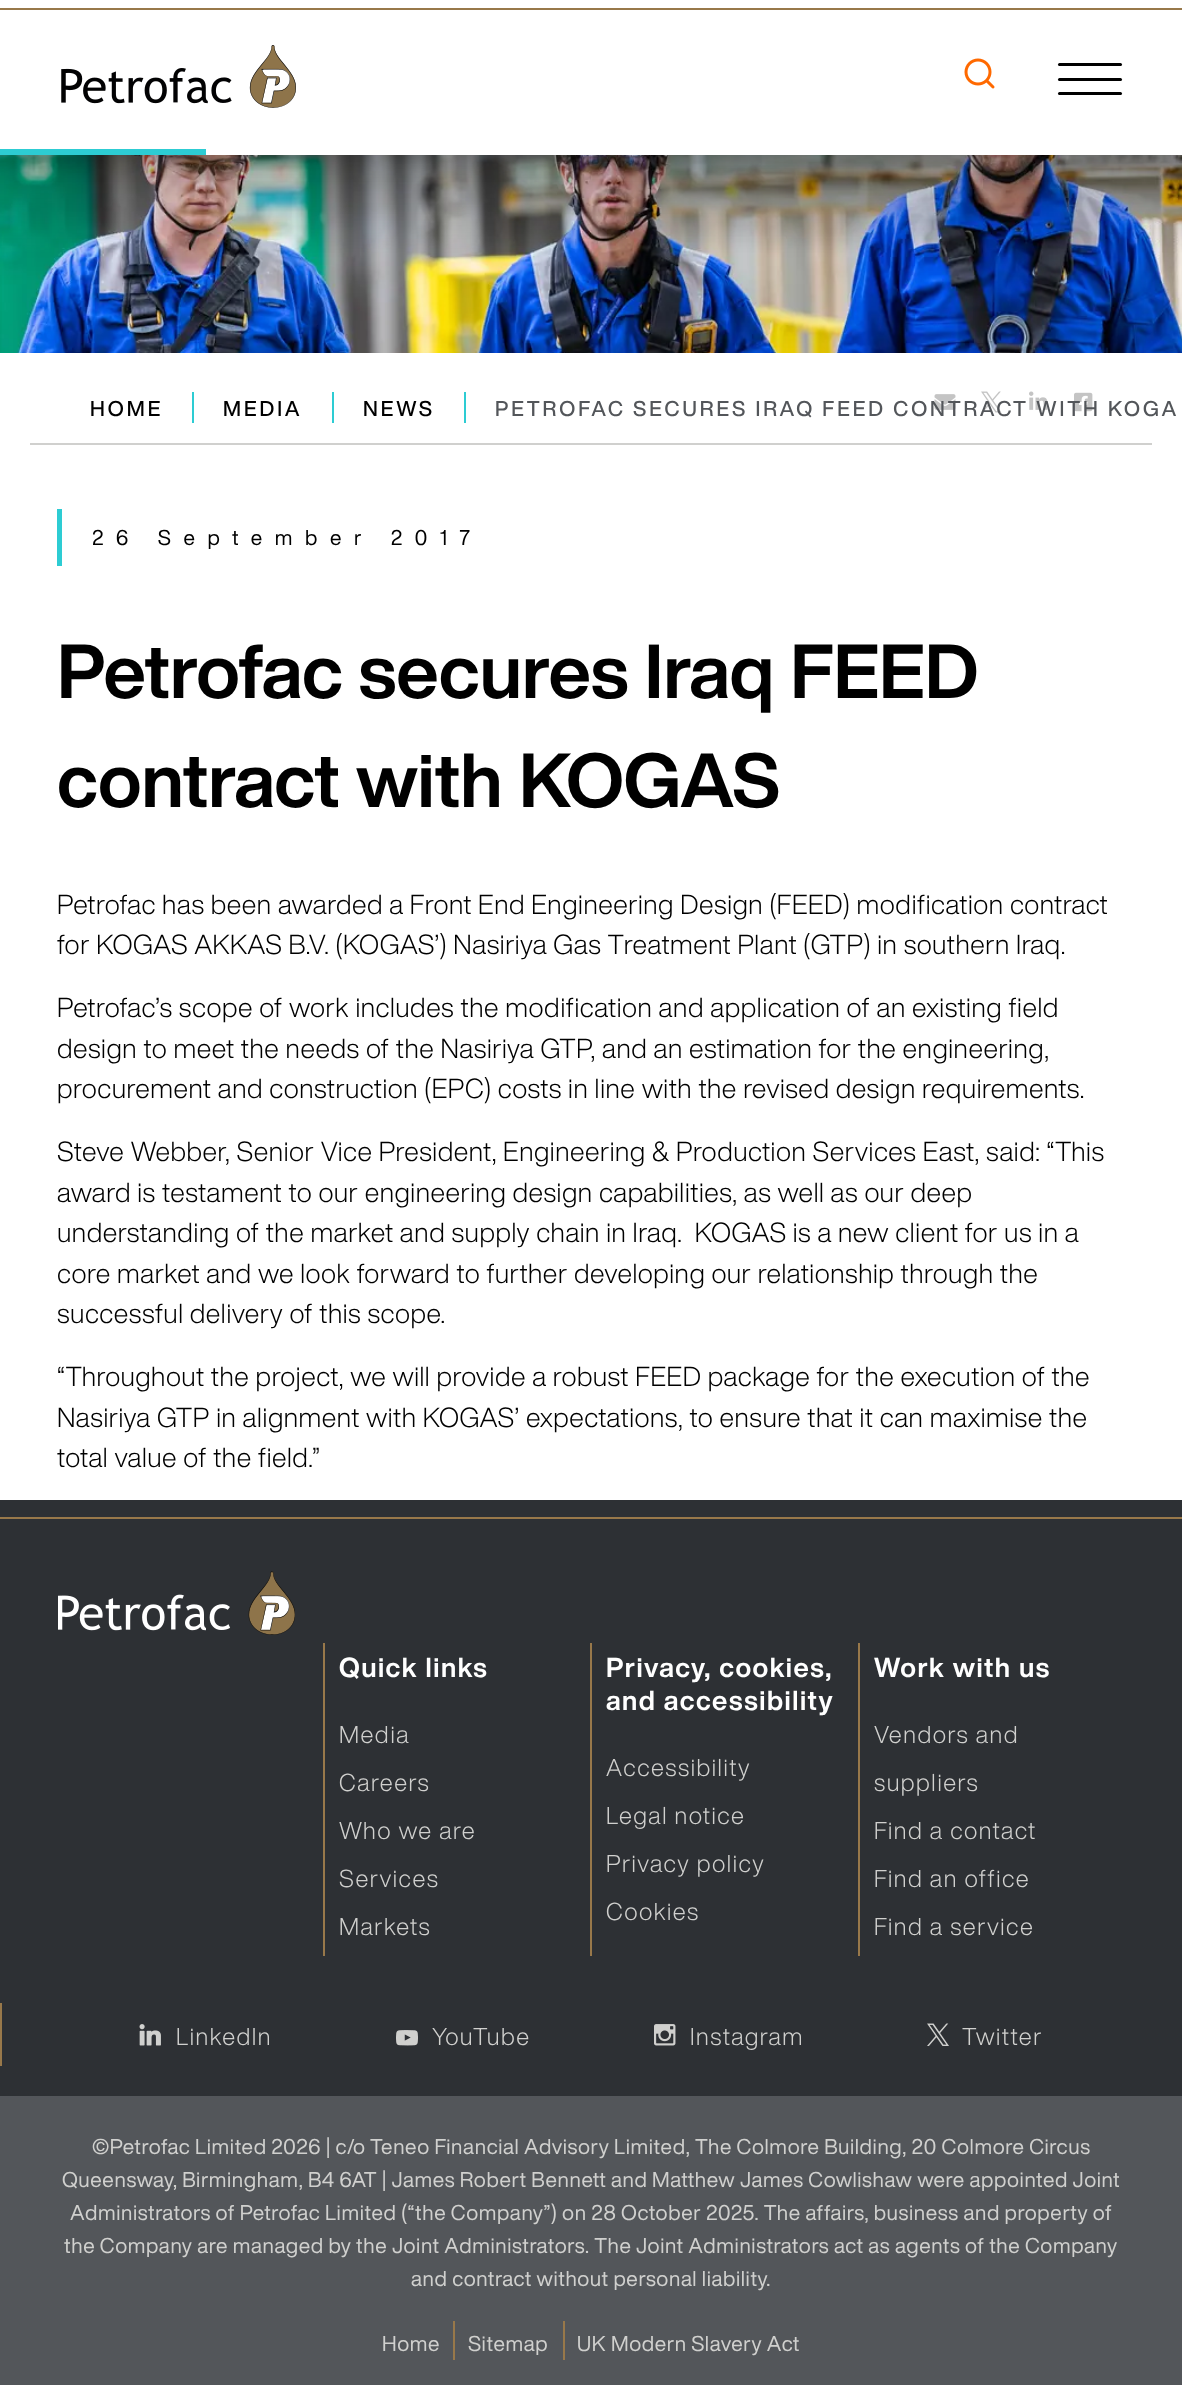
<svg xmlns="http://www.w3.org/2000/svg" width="1182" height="2385">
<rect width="100%" height="100%" fill="#fff"/>
<image x="0" y="155" width="1182" height="198" href="media/3.png"/>
<rect y="6" width="1182" height="155" fill="#0000001c" filter="blur(10.5px)"/>
<rect width="1182" height="155" fill="#fff"/>
<rect y="8" width="1182" height="2" fill="#98784a"/>
<image x="61" y="45" width="235" height="63" href="media/1.png"/>
<image x="964" y="58" width="31" height="31" href="media/2.png"/>
<rect x="1058" y="63" width="64" height="3" rx="1.5" fill="#000"/>
<rect x="1058" y="78" width="64" height="3" rx="1.5" fill="#000"/>
<rect x="1058" y="92" width="64" height="3" rx="1.5" fill="#000"/>
<rect y="149" width="206" height="6" fill="#2dccd3"/>
<rect x="30" y="443" width="1122" height="2" fill="#d0d0ce"/>
<image x="934" y="394" width="22" height="16" href="media/4.png"/>
<image x="981" y="391" width="21" height="22" href="media/5.png"/>
<image x="1029" y="391" width="19" height="19" href="media/6.png"/>
<image x="1074" y="392" width="19" height="20" href="media/7.png"/>
<text x="90" y="416" style="font-family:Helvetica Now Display;font-size:21px;font-weight:500;letter-spacing:3px;fill:#000">HOME</text>
<rect x="192" y="392" width="2" height="31" fill="#2dccd3"/>
<text x="223" y="416" style="font-family:Helvetica Now Display;font-size:21px;font-weight:500;letter-spacing:3px;fill:#000">MEDIA</text>
<rect x="332" y="392" width="2" height="31" fill="#2dccd3"/>
<text x="363" y="416" style="font-family:Helvetica Now Display;font-size:21px;font-weight:500;letter-spacing:3px;fill:#000">NEWS</text>
<rect x="464" y="392" width="2" height="31" fill="#2dccd3"/>
<text x="495" y="416" style="font-family:Helvetica Now Display;font-size:21px;font-weight:500;letter-spacing:3px;fill:#53565a">PETROFAC SECURES IRAQ FEED CONTRACT WITH KOGA</text>
<rect x="57" y="509" width="5" height="57" fill="#2dccd3"/>
<text x="92" y="545" style="font-family:Helvetica Now Display;font-size:21px;letter-spacing:12.6px;fill:#000">26 September 2017</text>
<text x="57" y="698" style="font-family:Helvetica Now Display;font-size:75px;font-weight:bold;fill:#000">Petrofac secures Iraq FEED</text>
<text x="57" y="807" style="font-family:Helvetica Now Display;font-size:75px;font-weight:bold;fill:#000">contract with KOGAS</text>
<text x="57" y="914" style="font-family:Helvetica Now Display;font-size:27px;font-weight:300;letter-spacing:0.55px;fill:#000">Petrofac has been awarded a Front End Engineering Design (FEED) modification contract</text>
<text x="57" y="954" style="font-family:Helvetica Now Display;font-size:27px;font-weight:300;letter-spacing:0.55px;fill:#000">for KOGAS AKKAS B.V. (KOGAS’) Nasiriya Gas Treatment Plant (GTP) in southern Iraq.</text>
<text x="57" y="1017" style="font-family:Helvetica Now Display;font-size:27px;font-weight:300;letter-spacing:0.55px;fill:#000">Petrofac’s scope of work includes the modification and application of an existing field</text>
<text x="57" y="1058" style="font-family:Helvetica Now Display;font-size:27px;font-weight:300;letter-spacing:0.55px;fill:#000">design to meet the needs of the Nasiriya GTP, and an estimation for the engineering,</text>
<text x="57" y="1098" style="font-family:Helvetica Now Display;font-size:27px;font-weight:300;letter-spacing:0.55px;fill:#000">procurement and construction (EPC) costs in line with the revised design requirements.</text>
<text x="57" y="1161" style="font-family:Helvetica Now Display;font-size:27px;font-weight:300;letter-spacing:0.55px;fill:#000">Steve Webber, Senior Vice President, Engineering &amp; Production Services East, said: “This</text>
<text x="57" y="1202" style="font-family:Helvetica Now Display;font-size:27px;font-weight:300;letter-spacing:0.55px;fill:#000">award is testament to our engineering design capabilities, as well as our deep</text>
<text x="57" y="1242" style="font-family:Helvetica Now Display;font-size:27px;font-weight:300;letter-spacing:0.55px;fill:#000" xml:space="preserve">understanding of the market and supply chain in Iraq.  KOGAS is a new client for us in a</text>
<text x="57" y="1283" style="font-family:Helvetica Now Display;font-size:27px;font-weight:300;letter-spacing:0.55px;fill:#000">core market and we look forward to further developing our relationship through the</text>
<text x="57" y="1323" style="font-family:Helvetica Now Display;font-size:27px;font-weight:300;letter-spacing:0.55px;fill:#000">successful delivery of this scope.</text>
<text x="57" y="1386" style="font-family:Helvetica Now Display;font-size:27px;font-weight:300;letter-spacing:0.55px;fill:#000">“Throughout the project, we will provide a robust FEED package for the execution of the</text>
<text x="57" y="1427" style="font-family:Helvetica Now Display;font-size:27px;font-weight:300;letter-spacing:0.55px;fill:#000">Nasiriya GTP in alignment with KOGAS’ expectations, to ensure that it can maximise the</text>
<text x="57" y="1467" style="font-family:Helvetica Now Display;font-size:27px;font-weight:300;letter-spacing:0.55px;fill:#000">total value of the field.”</text>
<rect y="1500" width="1182" height="596" fill="#2d3034"/>
<rect y="1517" width="1182" height="2" fill="#98784a"/>
<image x="58" y="1571" width="237" height="64" href="media/8.png"/>
<rect x="323" y="1643" width="2" height="313" fill="#98784a"/>
<text x="339" y="1677" style="font-family:Helvetica Now Display;font-size:27px;font-weight:bold;letter-spacing:1.5px;fill:#fff">Quick links</text>
<text x="339" y="1743" style="font-family:Helvetica Now Display;font-size:24px;font-weight:300;letter-spacing:1.5px;fill:#d0d0ce">Media</text>
<text x="339" y="1791" style="font-family:Helvetica Now Display;font-size:24px;font-weight:300;letter-spacing:1.5px;fill:#d0d0ce">Careers</text>
<text x="339" y="1839" style="font-family:Helvetica Now Display;font-size:24px;font-weight:300;letter-spacing:1.5px;fill:#d0d0ce">Who we are</text>
<text x="339" y="1887" style="font-family:Helvetica Now Display;font-size:24px;font-weight:300;letter-spacing:1.5px;fill:#d0d0ce">Services</text>
<text x="339" y="1935" style="font-family:Helvetica Now Display;font-size:24px;font-weight:300;letter-spacing:1.5px;fill:#d0d0ce">Markets</text>
<rect x="590" y="1643" width="2" height="313" fill="#98784a"/>
<text x="606" y="1677" style="font-family:Helvetica Now Display;font-size:27px;font-weight:bold;letter-spacing:1.5px;fill:#fff">Privacy, cookies,</text>
<text x="606" y="1710" style="font-family:Helvetica Now Display;font-size:27px;font-weight:bold;letter-spacing:1.5px;fill:#fff">and accessibility</text>
<text x="606" y="1776" style="font-family:Helvetica Now Display;font-size:24px;font-weight:300;letter-spacing:1.5px;fill:#d0d0ce">Accessibility</text>
<text x="606" y="1824" style="font-family:Helvetica Now Display;font-size:24px;font-weight:300;letter-spacing:1.5px;fill:#d0d0ce">Legal notice</text>
<text x="606" y="1872" style="font-family:Helvetica Now Display;font-size:24px;font-weight:300;letter-spacing:1.5px;fill:#d0d0ce">Privacy policy</text>
<text x="606" y="1920" style="font-family:Helvetica Now Display;font-size:24px;font-weight:300;letter-spacing:1.5px;fill:#d0d0ce">Cookies</text>
<rect x="858" y="1643" width="2" height="313" fill="#98784a"/>
<text x="874" y="1677" style="font-family:Helvetica Now Display;font-size:27px;font-weight:bold;letter-spacing:1.5px;fill:#fff">Work with us</text>
<text x="874" y="1743" style="font-family:Helvetica Now Display;font-size:24px;font-weight:300;letter-spacing:1.5px;fill:#d0d0ce">Vendors and</text>
<text x="874" y="1791" style="font-family:Helvetica Now Display;font-size:24px;font-weight:300;letter-spacing:1.5px;fill:#d0d0ce">suppliers</text>
<text x="874" y="1839" style="font-family:Helvetica Now Display;font-size:24px;font-weight:300;letter-spacing:1.5px;fill:#d0d0ce">Find a contact</text>
<text x="874" y="1887" style="font-family:Helvetica Now Display;font-size:24px;font-weight:300;letter-spacing:1.5px;fill:#d0d0ce">Find an office</text>
<text x="874" y="1935" style="font-family:Helvetica Now Display;font-size:24px;font-weight:300;letter-spacing:1.5px;fill:#d0d0ce">Find a service</text>
<rect y="2003" width="2" height="63" fill="#98784a"/>
<image x="139" y="2024" width="22" height="22" href="media/9.png"/>
<text x="176" y="2045" style="font-family:Helvetica Now Display;font-size:24px;font-weight:300;letter-spacing:1.5px;fill:#d0d0ce">LinkedIn</text>
<image x="396" y="2030" width="22" height="16" href="media/10.png"/>
<text x="432" y="2045" style="font-family:Helvetica Now Display;font-size:24px;font-weight:300;letter-spacing:1.5px;fill:#d0d0ce">YouTube</text>
<image x="654" y="2024" width="22" height="22" href="media/11.png"/>
<text x="690" y="2045" style="font-family:Helvetica Now Display;font-size:24px;font-weight:300;letter-spacing:1.5px;fill:#d0d0ce">Instagram</text>
<image x="927" y="2023" width="22" height="23" href="media/12.png"/>
<text x="962" y="2045" style="font-family:Helvetica Now Display;font-size:24px;font-weight:300;letter-spacing:1.5px;fill:#d0d0ce">Twitter</text>
<rect y="2096" width="1182" height="289" fill="#53565a"/>
<text x="92" y="2154" style="font-family:Helvetica Now Display;font-size:21px;letter-spacing:0.63px;fill:#d0d0ce">©Petrofac Limited 2026 | c/o Teneo Financial Advisory Limited, The Colmore Building, 20 Colmore Circus</text>
<text x="62" y="2187" style="font-family:Helvetica Now Display;font-size:21px;letter-spacing:0.63px;fill:#d0d0ce">Queensway, Birmingham, B4 6AT | James Robert Bennett and Matthew James Cowlishaw were appointed Joint</text>
<text x="70" y="2220" style="font-family:Helvetica Now Display;font-size:21px;letter-spacing:0.63px;fill:#d0d0ce">Administrators of Petrofac Limited (“the Company”) on 28 October 2025. The affairs, business and property of</text>
<text x="64" y="2253" style="font-family:Helvetica Now Display;font-size:21px;letter-spacing:0.63px;fill:#d0d0ce">the Company are managed by the Joint Administrators. The Joint Administrators act as agents of the Company</text>
<text x="411" y="2286" style="font-family:Helvetica Now Display;font-size:21px;letter-spacing:0.63px;fill:#d0d0ce">and contract without personal liability.</text>
<rect x="453" y="2321" width="2" height="39" fill="#98784a"/>
<text x="382" y="2351" style="font-family:Helvetica Now Display;font-size:21px;letter-spacing:0.63px;fill:#d0d0ce">Home</text>
<rect x="563" y="2321" width="2" height="39" fill="#98784a"/>
<text x="468" y="2351" style="font-family:Helvetica Now Display;font-size:21px;letter-spacing:0.63px;fill:#d0d0ce">Sitemap</text>
<text x="577" y="2351" style="font-family:Helvetica Now Display;font-size:21px;letter-spacing:0.63px;fill:#d0d0ce">UK Modern Slavery Act</text>
</svg>
